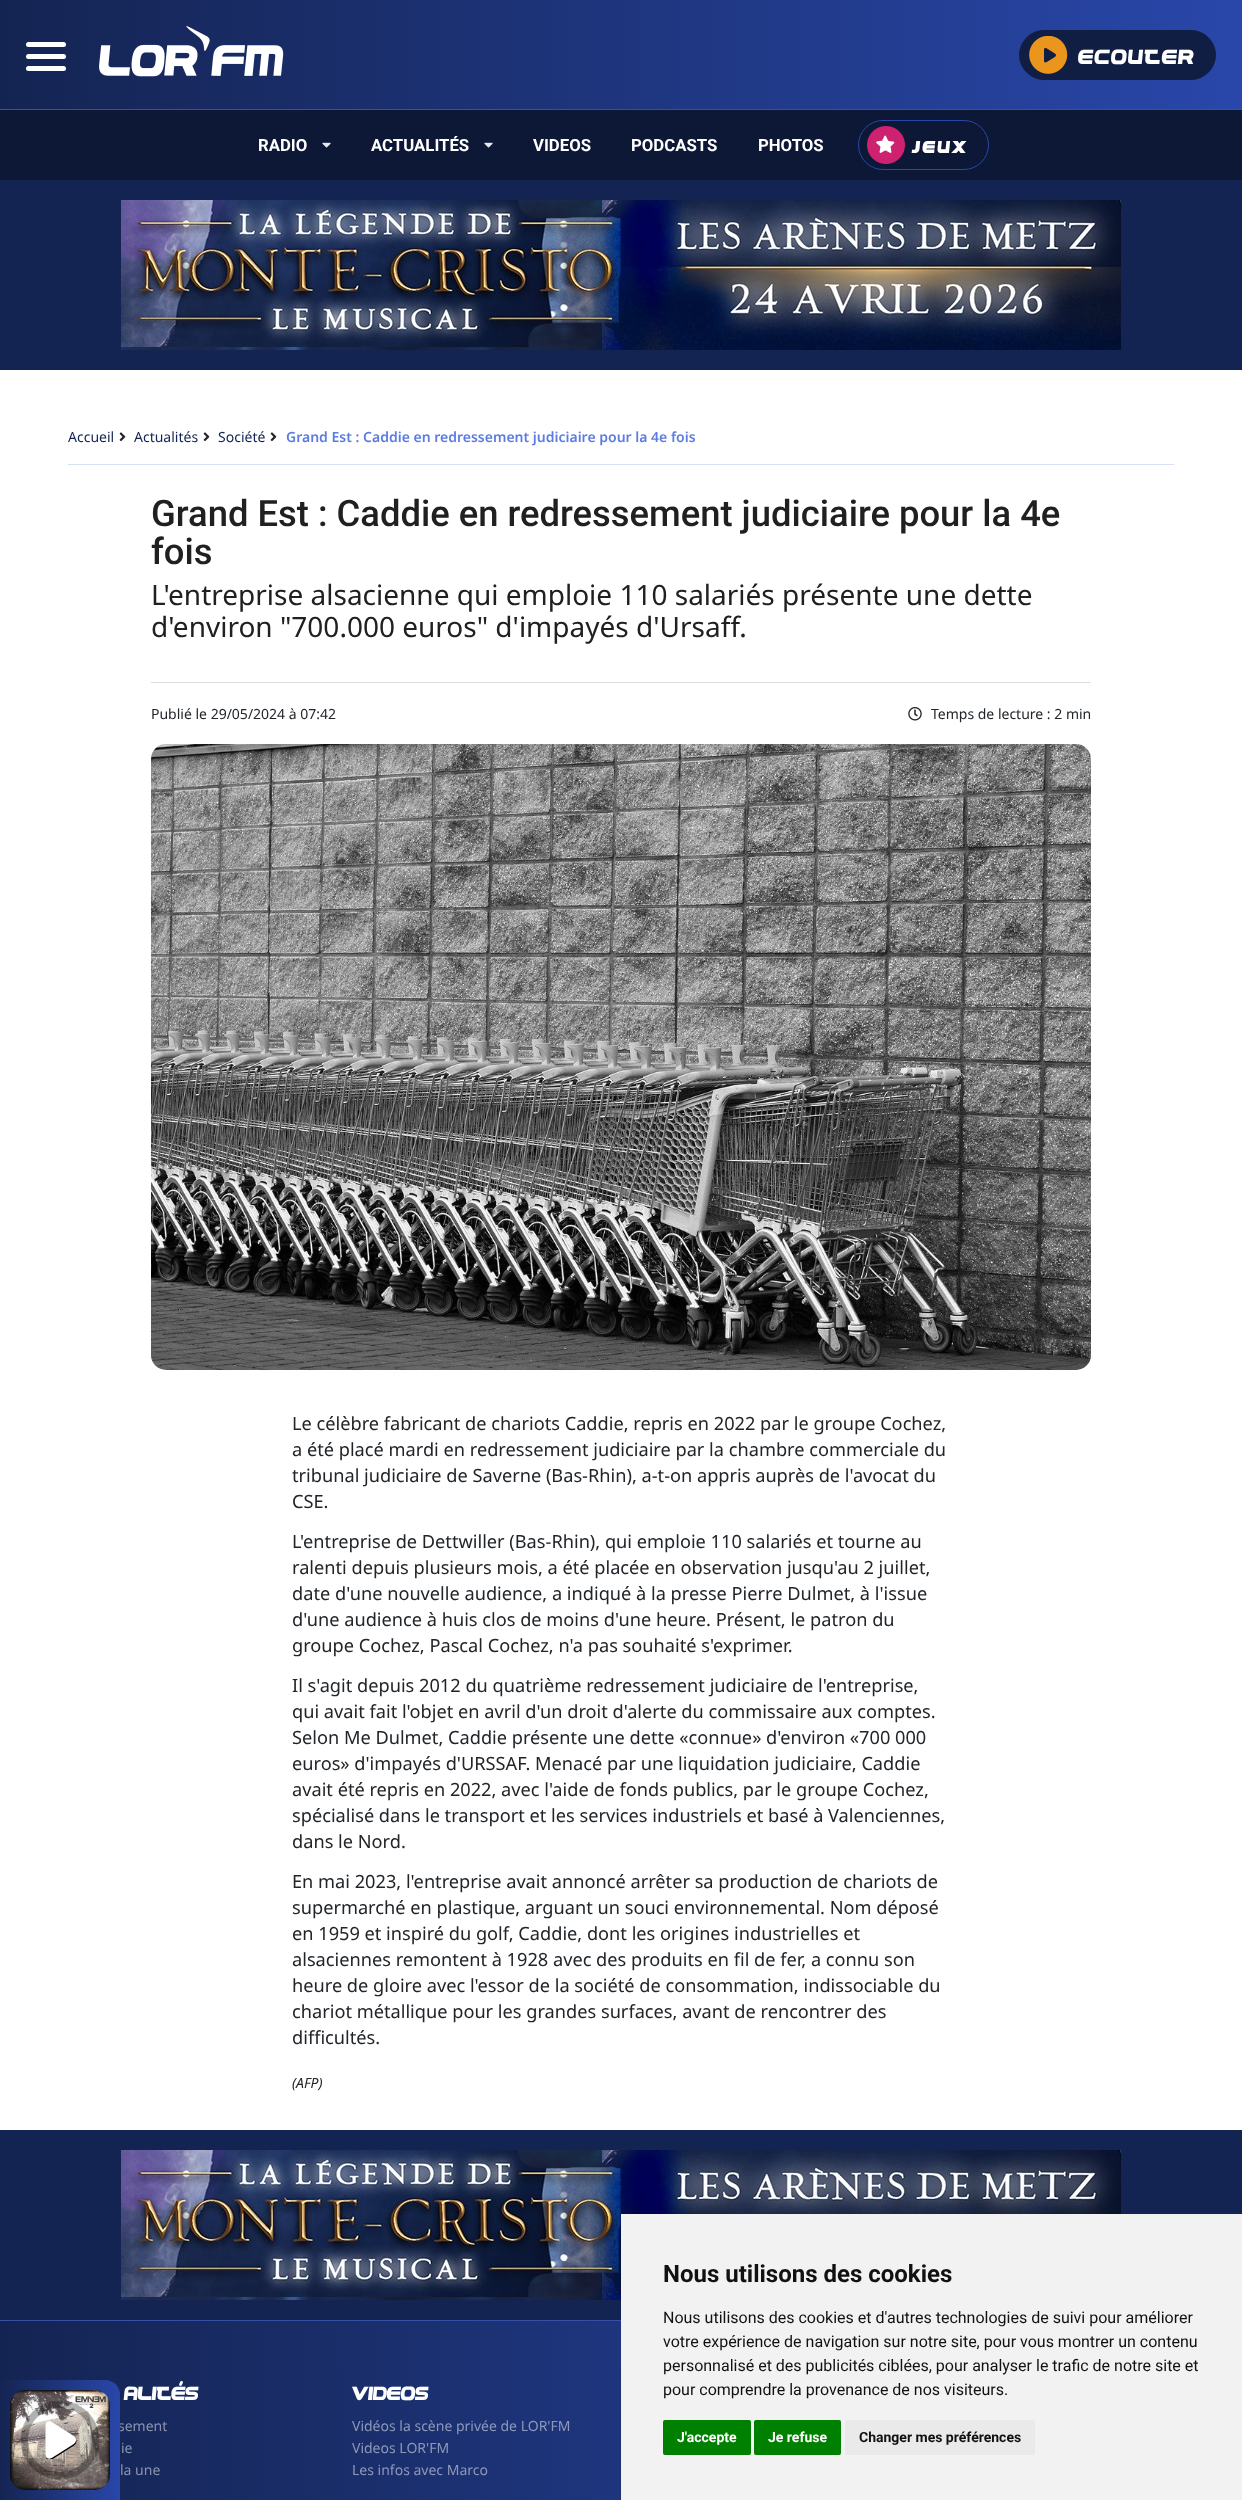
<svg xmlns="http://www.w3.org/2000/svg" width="1242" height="2500">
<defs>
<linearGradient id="g1" gradientUnits="userSpaceOnUse" x1="0" y1="55" x2="1242" y2="54"><stop offset="0" stop-color="#142452"/><stop offset="1" stop-color="#2947aa"/></linearGradient>
<linearGradient id="g2" gradientUnits="userSpaceOnUse" x1="0" y1="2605" x2="1242" y2="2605"><stop offset="0" stop-color="#142452"/><stop offset="1" stop-color="#2947aa"/></linearGradient>
<linearGradient id="g3" gradientUnits="userSpaceOnUse" x1="0" y1="2440" x2="120" y2="2440"><stop offset="0" stop-color="#142452"/><stop offset="1" stop-color="#2947aa"/></linearGradient>
</defs>
<rect width="100%" height="100%" fill="#fff"/>
<rect width="1242" height="109" fill="url(#g1)"/>
<rect y="109" width="1242" height="1" fill="#3650a5"/>
<rect x="26" y="42" width="40" height="5" rx="2.5" fill="#fff"/>
<rect x="26" y="54" width="40" height="5" rx="2.5" fill="#fff"/>
<rect x="26" y="66" width="40" height="5" rx="2.5" fill="#fff"/>
<image x="99" y="26" width="185" height="51" href="media/1.png"/>
<rect x="1019.5" y="30.5" width="196" height="49" rx="24.5" fill="#111e44" stroke="#111e44"/>
<image x="1029" y="36" width="39" height="38" href="media/2.png"/>
<text x="1078" y="64" style="font-family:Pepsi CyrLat;font-size:21px;letter-spacing:1.5px;fill:#fff">Ecouter</text>
<rect y="110" width="1242" height="70" fill="#0d1736"/>
<text x="258" y="151" style="font-family:Roboto;font-size:16.75px;font-weight:bold;fill:#fff">RADIO</text>
<image x="322" y="142" width="9" height="6" href="media/3.png"/>
<text x="371" y="151" style="font-family:Roboto;font-size:16.75px;font-weight:bold;fill:#fff">ACTUALITÉS</text>
<image x="484" y="142" width="9" height="6" href="media/3.png"/>
<text x="533" y="151" style="font-family:Roboto;font-size:16.75px;font-weight:bold;fill:#fff">VIDEOS</text>
<text x="631" y="151" style="font-family:Roboto;font-size:16.75px;font-weight:bold;fill:#fff">PODCASTS</text>
<text x="758" y="151" style="font-family:Roboto;font-size:16.75px;font-weight:bold;fill:#fff">PHOTOS</text>
<rect x="858.5" y="120.5" width="130" height="49" rx="24.5" fill="none" stroke="#2947aa"/>
<image x="867" y="126" width="38" height="38" href="media/4.png"/>
<text x="912" y="153" style="font-family:Pepsi CyrLat;font-size:16.75px;font-weight:bold;letter-spacing:3px;fill:#fff">JEUX</text>
<rect y="180" width="1242" height="190" fill="#142452"/>
<image x="121" y="200" width="1000" height="150" href="media/5.png"/>
<rect x="68" y="464" width="1106" height="1" fill="#d6e1f5"/>
<text x="68" y="442" style="font-family:Noto Sans;font-size:14px;fill:#142452">Accueil</text>
<image x="119" y="432" width="7" height="10" href="media/6.png"/>
<text x="134" y="442" style="font-family:Noto Sans;font-size:14px;fill:#142452">Actualités</text>
<image x="203" y="432" width="7" height="10" href="media/6.png"/>
<text x="218" y="442" style="font-family:Noto Sans;font-size:14px;fill:#142452">Société</text>
<image x="270" y="432" width="7" height="10" href="media/6.png"/>
<text x="286" y="442" style="font-family:Noto Sans;font-size:14px;font-weight:600;fill:#5c7ce2">Grand Est : Caddie en redressement judiciaire pour la 4e fois</text>
<text x="151" y="526" style="font-family:Roboto;font-size:36.4px;font-weight:500;fill:#202020">Grand Est : Caddie en redressement judiciaire pour la 4e</text>
<text x="151" y="564" style="font-family:Roboto;font-size:36.4px;font-weight:500;fill:#202020">fois</text>
<text x="151" y="605" style="font-family:Noto Sans;font-size:28px;fill:#202020">L'entreprise alsacienne qui emploie 110 salariés présente une dette</text>
<text x="151" y="637" style="font-family:Noto Sans;font-size:28px;fill:#202020">d'environ "700.000 euros" d'impayés d'Ursaff.</text>
<rect x="151" y="682" width="940" height="1" fill="#dedede"/>
<text x="151" y="719" style="font-family:Noto Sans;font-size:14px;fill:#212529">Publié le 29/05/2024 à 07:42</text>
<image x="908" y="707" width="14" height="14" href="media/7.png"/>
<text x="931" y="719" style="font-family:Noto Sans;font-size:14px;fill:#212529">Temps de lecture : 2 min</text>
<image x="151" y="744" width="940" height="626" href="media/8.png"/>
<text x="292" y="1430" style="font-family:Noto Sans;font-size:18.2px;fill:#212529">Le célèbre fabricant de chariots Caddie, repris en 2022 par le groupe Cochez,</text>
<text x="292" y="1456" style="font-family:Noto Sans;font-size:18.2px;fill:#212529">a été placé mardi en redressement judiciaire par la chambre commerciale du</text>
<text x="292" y="1482" style="font-family:Noto Sans;font-size:18.2px;fill:#212529">tribunal judiciaire de Saverne (Bas-Rhin), a-t-on appris auprès de l'avocat du</text>
<text x="292" y="1508" style="font-family:Noto Sans;font-size:18.2px;fill:#212529">CSE.</text>
<text x="292" y="1548" style="font-family:Noto Sans;font-size:18.2px;fill:#212529">L'entreprise de Dettwiller (Bas-Rhin), qui emploie 110 salariés et tourne au</text>
<text x="292" y="1574" style="font-family:Noto Sans;font-size:18.2px;fill:#212529">ralenti depuis plusieurs mois, a été placée en observation jusqu'au 2 juillet,</text>
<text x="292" y="1600" style="font-family:Noto Sans;font-size:18.2px;fill:#212529">date d'une nouvelle audience, a indiqué à la presse Pierre Dulmet, à l'issue</text>
<text x="292" y="1626" style="font-family:Noto Sans;font-size:18.2px;fill:#212529">d'une audience à huis clos de moins d'une heure. Présent, le patron du</text>
<text x="292" y="1652" style="font-family:Noto Sans;font-size:18.2px;fill:#212529">groupe Cochez, Pascal Cochez, n'a pas souhaité s'exprimer.</text>
<text x="292" y="1692" style="font-family:Noto Sans;font-size:18.2px;fill:#212529">Il s'agit depuis 2012 du quatrième redressement judiciaire de l'entreprise,</text>
<text x="292" y="1718" style="font-family:Noto Sans;font-size:18.2px;fill:#212529">qui avait fait l'objet en avril d'un droit d'alerte du commissaire aux comptes.</text>
<text x="292" y="1744" style="font-family:Noto Sans;font-size:18.2px;fill:#212529">Selon Me Dulmet, Caddie présente une dette «connue» d'environ «700 000</text>
<text x="292" y="1770" style="font-family:Noto Sans;font-size:18.2px;fill:#212529">euros» d'impayés d'URSSAF. Menacé par une liquidation judiciaire, Caddie</text>
<text x="292" y="1796" style="font-family:Noto Sans;font-size:18.2px;fill:#212529">avait été repris en 2022, avec l'aide de fonds publics, par le groupe Cochez,</text>
<text x="292" y="1822" style="font-family:Noto Sans;font-size:18.2px;fill:#212529">spécialisé dans le transport et les services industriels et basé à Valenciennes,</text>
<text x="292" y="1848" style="font-family:Noto Sans;font-size:18.2px;fill:#212529">dans le Nord.</text>
<text x="292" y="1888" style="font-family:Noto Sans;font-size:18.2px;fill:#212529">En mai 2023, l'entreprise avait annoncé arrêter sa production de chariots de</text>
<text x="292" y="1914" style="font-family:Noto Sans;font-size:18.2px;fill:#212529">supermarché en plastique, arguant un souci environnemental. Nom déposé</text>
<text x="292" y="1940" style="font-family:Noto Sans;font-size:18.2px;fill:#212529">en 1959 et inspiré du golf, Caddie, dont les origines industrielles et</text>
<text x="292" y="1966" style="font-family:Noto Sans;font-size:18.2px;fill:#212529">alsaciennes remontent à 1928 avec des produits en fil de fer, a connu son</text>
<text x="292" y="1992" style="font-family:Noto Sans;font-size:18.2px;fill:#212529">heure de gloire avec l'essor de la société de consommation, indissociable du</text>
<text x="292" y="2018" style="font-family:Noto Sans;font-size:18.2px;fill:#212529">chariot métallique pour les grandes surfaces, avant de rencontrer des</text>
<text x="292" y="2044" style="font-family:Noto Sans;font-size:18.2px;fill:#212529">difficultés.</text>
<text x="292" y="2088" style="font-family:Noto Sans;font-size:14px;font-style:italic;fill:#212529">(AFP)</text>
<rect y="2130" width="1242" height="190" fill="#142452"/>
<image x="121" y="2150" width="1000" height="150" href="media/5.png"/>
<rect y="2321" width="621" height="179" fill="url(#g2)"/>
<text x="118" y="2431" style="font-family:Noto Sans;font-size:14px;fill:#8a93ad">sement</text>
<path d="M0 2380h105c8.5 0 15 6.5 15 15v105h-120z" fill="url(#g3)"/>
<image x="10" y="2390" width="100" height="100" href="media/9.png"/>
<image x="20" y="2400" width="80" height="80" href="media/10.png"/>
<image x="45" y="2421" width="32" height="38" href="media/11.png"/>
<rect y="2320" width="621" height="1" fill="#3650a5"/>
<text x="124" y="2400" style="font-family:Pepsi CyrLat;font-size:19.5px;fill:#fff">ALITÉS</text>
<text x="121" y="2453" style="font-family:Noto Sans;font-size:14px;fill:#8a93ad">ie</text>
<text x="120" y="2475" style="font-family:Noto Sans;font-size:14px;fill:#8a93ad">la une</text>
<rect x="337" y="2367" width="1" height="133" fill="#1b2d60"/>
<text x="352" y="2400" style="font-family:Pepsi CyrLat;font-size:19.5px;fill:#fff">VIDEOS</text>
<text x="352" y="2431" style="font-family:Noto Sans;font-size:14px;fill:#8d98b9">Vidéos la scène privée de LOR'FM</text>
<text x="352" y="2453" style="font-family:Noto Sans;font-size:14px;fill:#8d98b9">Videos LOR'FM</text>
<text x="352" y="2475" style="font-family:Noto Sans;font-size:14px;fill:#8d98b9">Les infos avec Marco</text>
<rect x="620" y="2367" width="1" height="133" fill="#1f3271"/>
<rect x="621" y="2214" width="621" height="286" fill="#f2f2f2"/>
<text x="663" y="2282" style="font-family:Roboto;font-size:24px;font-weight:bold;fill:#111">Nous utilisons des cookies</text>
<text x="663" y="2323" style="font-family:Roboto;font-size:16px;fill:#111">Nous utilisons des cookies et d'autres technologies de suivi pour améliorer</text>
<text x="663" y="2347" style="font-family:Roboto;font-size:16px;fill:#111">votre expérience de navigation sur notre site, pour vous montrer un contenu</text>
<text x="663" y="2371" style="font-family:Roboto;font-size:16px;fill:#111">personnalisé et des publicités ciblées, pour analyser le trafic de notre site et</text>
<text x="663" y="2395" style="font-family:Roboto;font-size:16px;fill:#111">pour comprendre la provenance de nos visiteurs.</text>
<rect x="663" y="2420" width="88" height="35" rx="2" fill="#008000"/>
<text x="677" y="2442" style="font-family:Roboto;font-size:14px;font-weight:bold;fill:#fff">J'accepte</text>
<rect x="754" y="2420" width="87" height="35" rx="2" fill="#008000"/>
<text x="768" y="2442" style="font-family:Roboto;font-size:14px;font-weight:bold;fill:#fff">Je refuse</text>
<rect x="845" y="2420" width="190" height="35" rx="2" fill="#eaeaea"/>
<text x="859" y="2442" style="font-family:Roboto;font-size:14px;font-weight:bold;fill:#111">Changer mes préférences</text>
</svg>
